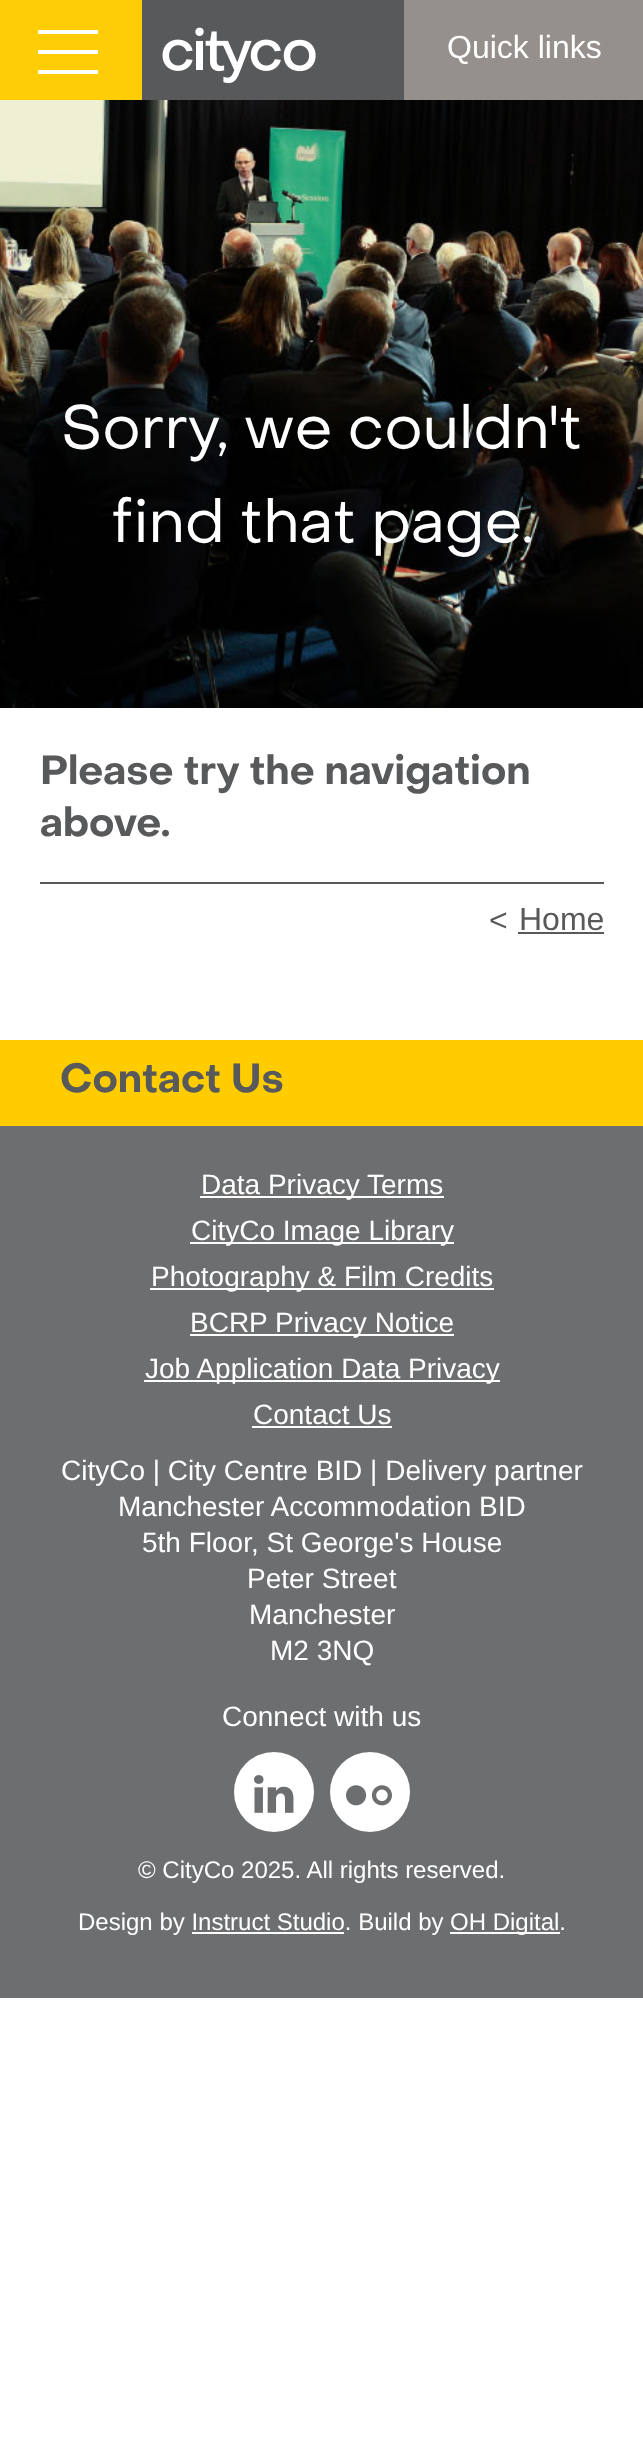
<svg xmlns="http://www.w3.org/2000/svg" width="643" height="2448">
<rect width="100%" height="100%" fill="#fff"/>
<rect x="142" width="262" height="100" fill="#58595b"/>
<rect width="142" height="100" fill="#ffcd05"/>
<rect x="38" y="30" width="60" height="4" fill="#fff"/>
<rect x="38" y="50" width="60" height="4" fill="#fff"/>
<rect x="38" y="70" width="60" height="4" fill="#fff"/>
<image x="162" y="27" width="154" height="57" href="media/1.png"/>
<rect x="404" width="239" height="100" fill="#95908b"/>
<text x="447" y="58" style="font-family:Liberation Sans;font-size:32px;fill:#fff">Quick links</text>
<image x="0" y="100" width="643" height="608" href="media/2.png"/>
<text x="61" y="448" style="font-family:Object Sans;font-size:60px;fill:#fff">Sorry, we couldn't</text>
<text x="111" y="542" style="font-family:Object Sans;font-size:60px;fill:#fff">find that page.</text>
<rect x="40" y="882" width="564" height="2" fill="#58595b"/>
<text x="40" y="784" style="font-family:Object Sans;font-size:40px;font-weight:bold;fill:#58595b">Please try the navigation</text>
<text x="40" y="836" style="font-family:Object Sans;font-size:40px;font-weight:bold;fill:#58595b">above.</text>
<text x="489" y="931" style="font-family:Liberation Sans;font-size:32px;fill:#58595b">&lt;</text>
<text x="519" y="930" style="font-family:Liberation Sans;font-size:32px;fill:#58595b">Home</text>
<rect x="518" y="932" width="86" height="2" fill="#58595b"/>
<rect y="1040" width="643" height="86" fill="#fc0"/>
<text x="60" y="1092" style="font-family:Object Sans;font-size:40px;font-weight:bold;fill:#58595b">Contact Us</text>
<rect y="1126" width="643" height="872" fill="#6d6e70"/>
<rect x="200" y="1196" width="244" height="2" fill="#fff"/>
<text x="201" y="1194" style="font-family:Liberation Sans;font-size:28px;fill:#fff">Data Privacy Terms</text>
<rect x="190" y="1242" width="264" height="2" fill="#fff"/>
<text x="191" y="1240" style="font-family:Liberation Sans;font-size:28px;fill:#fff">CityCo Image Library</text>
<rect x="150" y="1288" width="344" height="2" fill="#fff"/>
<text x="151" y="1286" style="font-family:Liberation Sans;font-size:28px;fill:#fff">Photography &amp; Film Credits</text>
<rect x="190" y="1334" width="264" height="2" fill="#fff"/>
<text x="190" y="1332" style="font-family:Liberation Sans;font-size:28px;fill:#fff">BCRP Privacy Notice</text>
<rect x="144" y="1380" width="356" height="2" fill="#fff"/>
<text x="145" y="1378" style="font-family:Liberation Sans;font-size:28px;fill:#fff">Job Application Data Privacy</text>
<text x="253" y="1424" style="font-family:Liberation Sans;font-size:28px;fill:#fff">Contact Us</text>
<rect x="252" y="1426" width="140" height="2" fill="#fff"/>
<text x="61" y="1480" style="font-family:Liberation Sans;font-size:28px;fill:#fff">CityCo | City Centre BID | Delivery partner</text>
<text x="118" y="1516" style="font-family:Liberation Sans;font-size:28px;fill:#fff">Manchester Accommodation BID</text>
<text x="142" y="1552" style="font-family:Liberation Sans;font-size:28px;fill:#fff">5th Floor, St George's House</text>
<text x="247" y="1588" style="font-family:Liberation Sans;font-size:28px;fill:#fff">Peter Street</text>
<text x="249" y="1624" style="font-family:Liberation Sans;font-size:28px;fill:#fff">Manchester</text>
<text x="270" y="1660" style="font-family:Liberation Sans;font-size:28px;fill:#fff">M2 3NQ</text>
<text x="222" y="1726" style="font-family:Liberation Sans;font-size:28px;fill:#fff">Connect with us</text>
<circle cx="274" cy="1792" r="40" fill="#fff"/>
<image x="254" y="1775" width="40" height="38" href="media/3.png"/>
<circle cx="370" cy="1792" r="40" fill="#fff"/>
<image x="346" y="1785" width="46" height="21" href="media/4.png"/>
<text x="138" y="1878" style="font-family:Liberation Sans;font-size:24px;fill:#fff">© CityCo 2025. All rights reserved.</text>
<text x="78" y="1930" style="font-family:Liberation Sans;font-size:24px;fill:#fff">Design by Instruct Studio. Build by</text>
<rect x="450" y="1932" width="110" height="2" fill="#fff"/>
<text x="450" y="1930" style="font-family:Liberation Sans;font-size:24px;fill:#fff">OH Digital.</text>
<rect x="192" y="1932" width="152" height="2" fill="#fff"/>
</svg>
